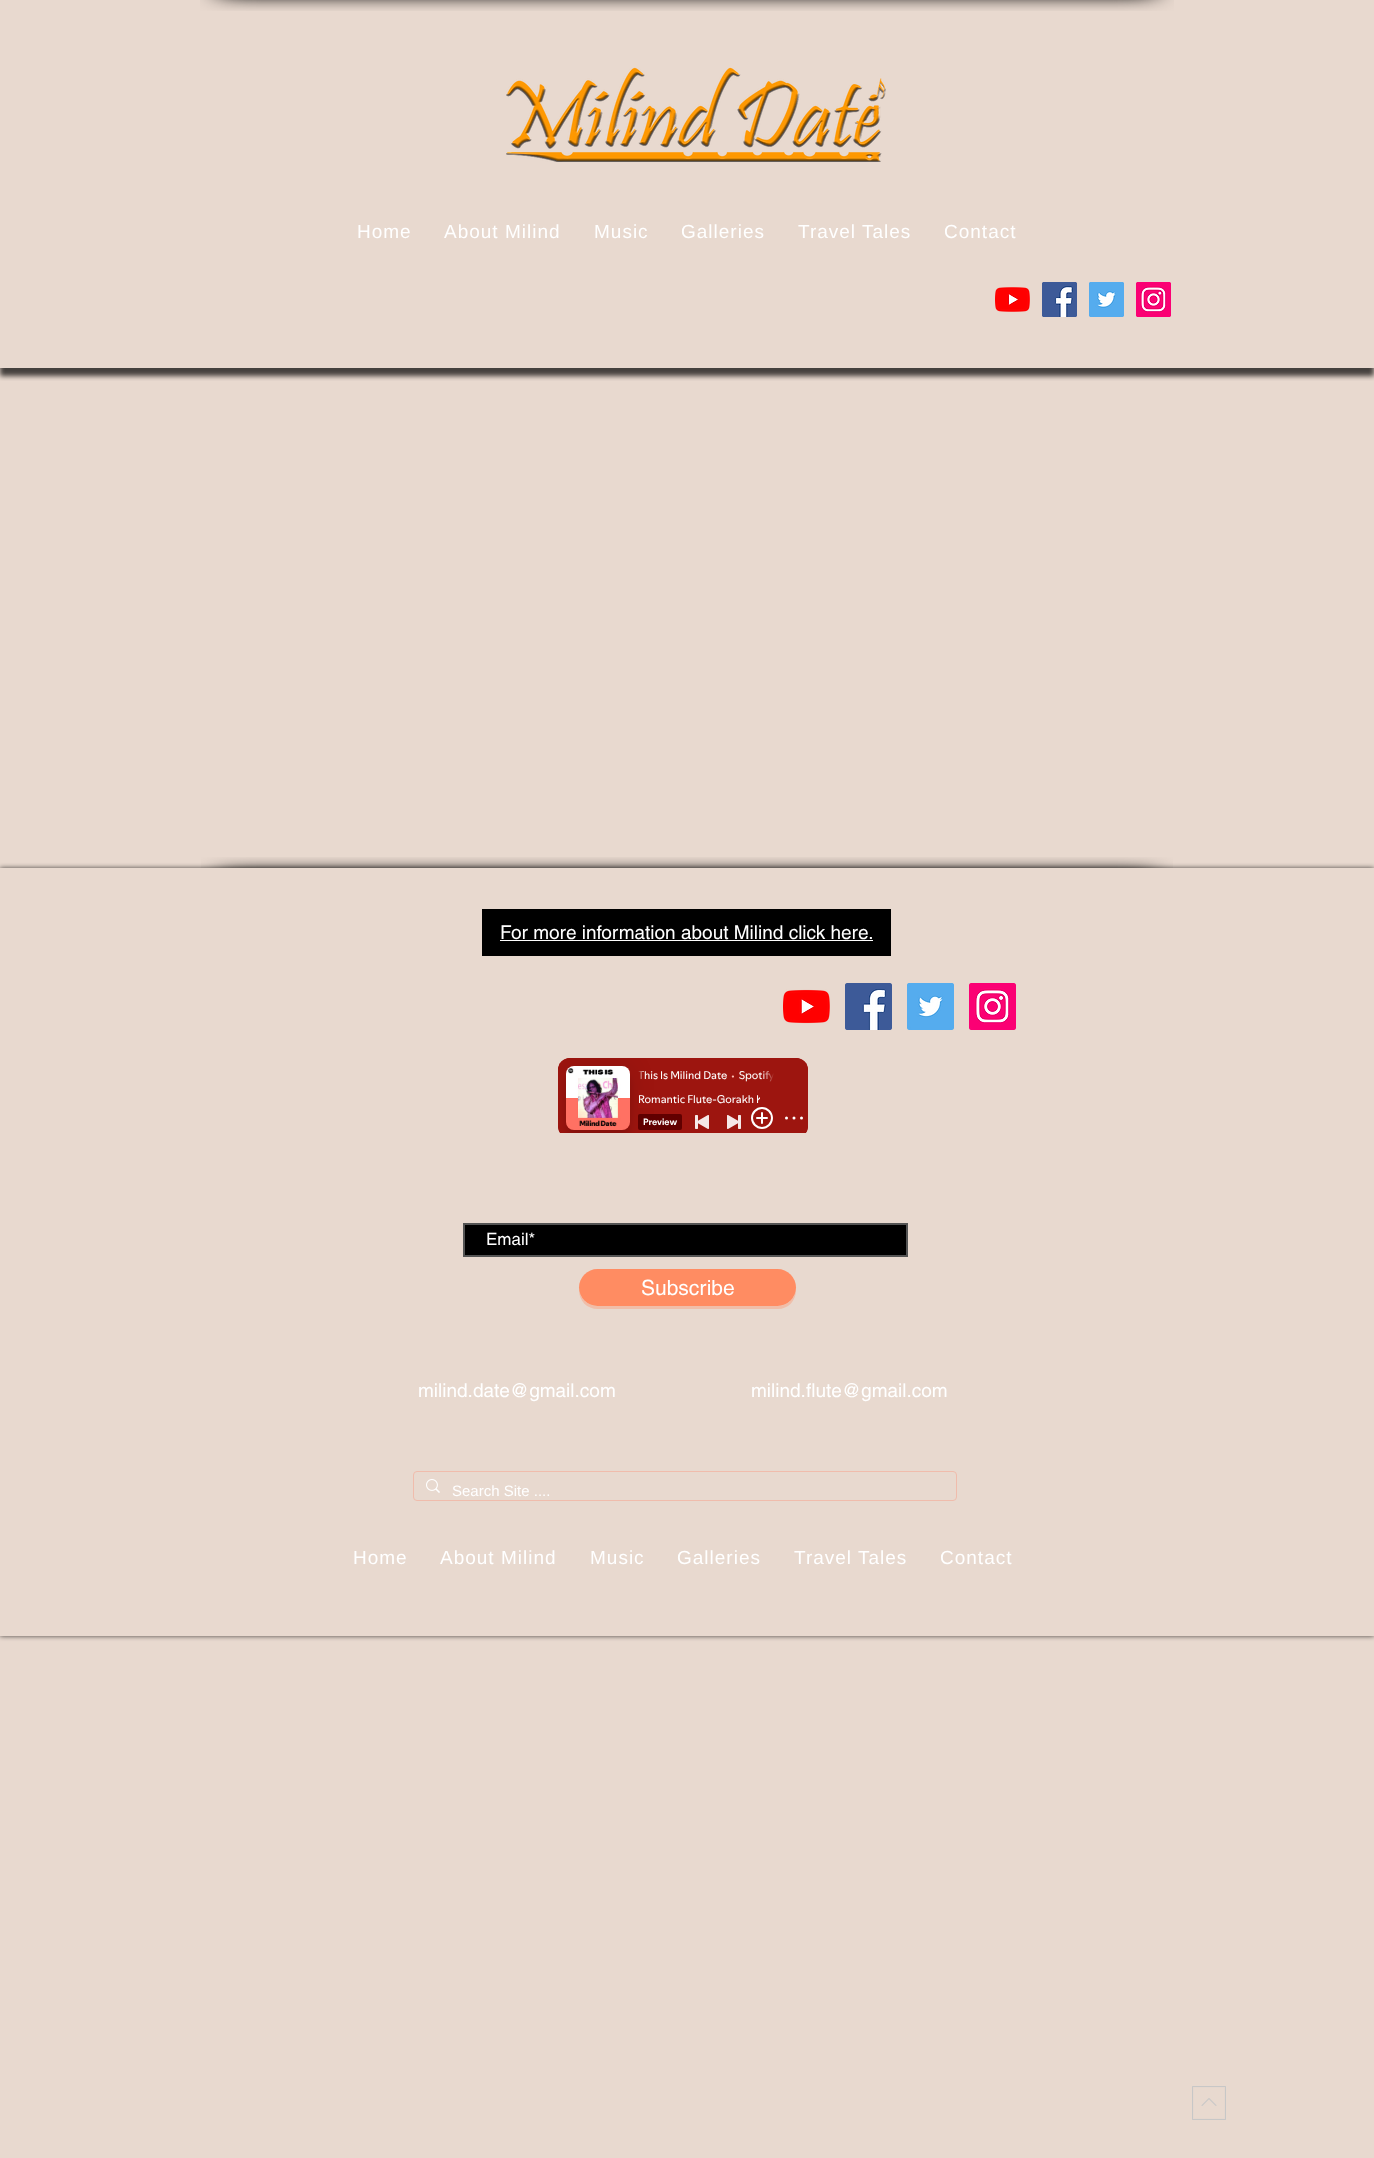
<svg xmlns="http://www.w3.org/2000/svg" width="1374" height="2158">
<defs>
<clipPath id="clip1"><rect x="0" y="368" width="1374" height="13"/></clipPath>
<clipPath id="clip2"><path d="M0 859h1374v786h-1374zm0 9h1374v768h-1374z" clip-rule="evenodd"/></clipPath>
</defs>
<rect width="100%" height="100%" fill="#e8d9cf"/>
<image x="200" y="0" width="97" height="11" href="media/1.png"/>
<image x="297" y="0" width="780" height="11" href="media/2.png"/>
<image x="1077" y="0" width="97" height="11" href="media/3.png"/>
<g clip-path="url(#clip1)">
<rect y="8" width="1374" height="368" fill="#000000b3" filter="blur(2.5px)"/>
</g>
<image x="506" y="67" width="380" height="95" href="media/4.png"/>
<text x="357" y="238" style="font-family:Liberation Sans;font-size:19px;letter-spacing:1px;fill:#fff">Home</text>
<text x="444" y="238" style="font-family:Liberation Sans;font-size:19px;letter-spacing:1px;fill:#fff">About Milind</text>
<text x="594" y="238" style="font-family:Liberation Sans;font-size:19px;letter-spacing:1px;fill:#fff">Music</text>
<text x="681" y="238" style="font-family:Liberation Sans;font-size:19px;letter-spacing:1px;fill:#fff">Galleries</text>
<text x="798" y="238" style="font-family:Liberation Sans;font-size:19px;letter-spacing:1px;fill:#fff">Travel Tales</text>
<text x="944" y="238" style="font-family:Liberation Sans;font-size:19px;letter-spacing:1px;fill:#fff">Contact</text>
<image x="995" y="287" width="35" height="25" href="media/5.png"/>
<image x="1042" y="282" width="35" height="35" href="media/6.png"/>
<image x="1089" y="282" width="35" height="35" href="media/7.png"/>
<image x="1136" y="282" width="35" height="35" href="media/8.png"/>
<g clip-path="url(#clip2)">
<rect y="868" width="1374" height="768" fill="#000000b3" filter="blur(2.5px)"/>
</g>
<image x="201" y="857" width="96" height="11" href="media/9.png"/>
<image x="297" y="857" width="780" height="11" href="media/10.png"/>
<image x="1077" y="857" width="96" height="11" href="media/11.png"/>
<rect x="482" y="909" width="409" height="47" fill="#000"/>
<text x="500" y="939" style="font-family:helvetica;font-size:19px;fill:#fff">For more information about Milind click here.</text>
<rect x="500" y="940" width="373" height="1" fill="#fff"/>
<image x="783" y="989" width="47" height="35" href="media/12.png"/>
<image x="845" y="983" width="47" height="47" href="media/13.png"/>
<image x="907" y="983" width="47" height="47" href="media/14.png"/>
<image x="969" y="983" width="47" height="47" href="media/15.png"/>
<image x="558" y="1058" width="250" height="75" href="media/16.png"/>
<rect x="464" y="1224" width="443" height="32" fill="#000" stroke="#545454" stroke-width="2"/>
<text x="486" y="1245" style="font-family:helvetica;font-size:17px;fill:#fff">Email*</text>
<path d="M579 1289v1c0 11 8 19 19 19h180c10 0 18-8 18-19v-1c-1 10-9 17-18 17h-180c-10 0-18-7-19-17z" fill="#f0bea9"/>
<rect x="579" y="1269" width="217" height="37" rx="18.5" fill="#ff8c62"/>
<text x="641" y="1295" style="font-family:helvetica;font-size:21px;fill:#fff">Subscribe</text>
<text x="418" y="1397" style="font-family:helvetica;font-size:19px;fill:#fff">milind.date@gmail.com</text>
<text x="751" y="1397" style="font-family:helvetica;font-size:19px;fill:#fff">milind.flute@gmail.com</text>
<rect x="413.5" y="1471.5" width="543" height="29" rx="3.5" fill="none" stroke="#f0bcac"/>
<image x="426" y="1479" width="14" height="14" href="media/17.png"/>
<text x="452" y="1496" style="font-family:Liberation Sans;font-size:15px;fill:#fff">Search Site ....</text>
<text x="353" y="1564" style="font-family:Liberation Sans;font-size:19px;letter-spacing:1px;fill:#fff">Home</text>
<text x="440" y="1564" style="font-family:Liberation Sans;font-size:19px;letter-spacing:1px;fill:#fff">About Milind</text>
<text x="590" y="1564" style="font-family:Liberation Sans;font-size:19px;letter-spacing:1px;fill:#fff">Music</text>
<text x="677" y="1564" style="font-family:Liberation Sans;font-size:19px;letter-spacing:1px;fill:#fff">Galleries</text>
<text x="794" y="1564" style="font-family:Liberation Sans;font-size:19px;letter-spacing:1px;fill:#fff">Travel Tales</text>
<text x="940" y="1564" style="font-family:Liberation Sans;font-size:19px;letter-spacing:1px;fill:#fff">Contact</text>
<image x="1192" y="2086" width="34" height="34" href="media/18.png"/>
</svg>
